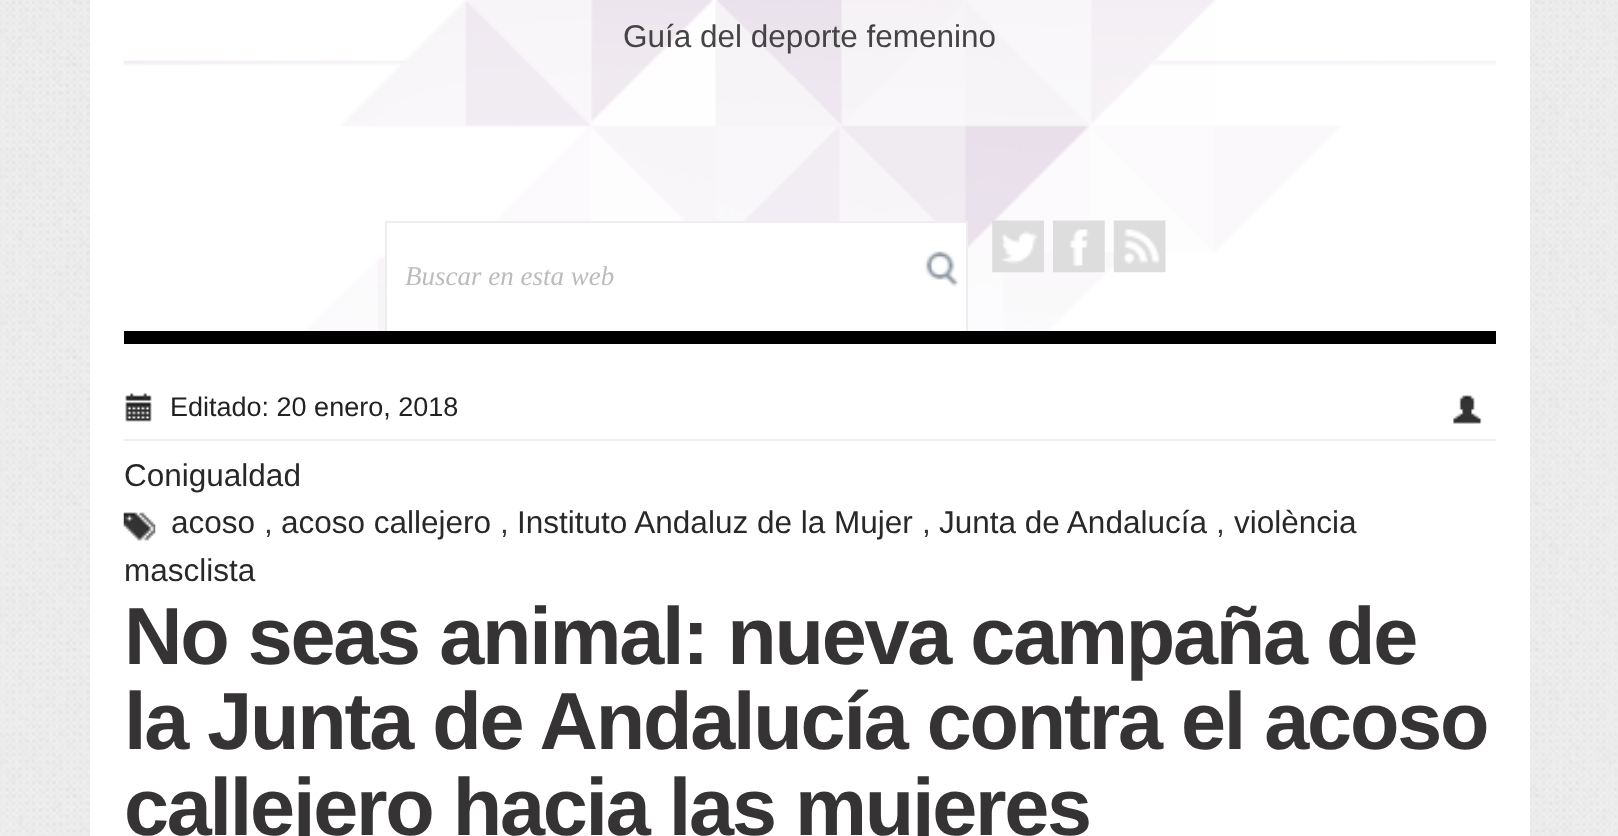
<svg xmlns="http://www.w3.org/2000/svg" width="1618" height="836">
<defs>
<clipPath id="clip1"><rect x="124" y="63" width="1372" height="268"/></clipPath>
</defs>
<rect width="100%" height="100%" fill="#fff"/>
<image x="0" y="0" width="1618" height="836" href="media/1.png"/>
<rect x="90" width="1440" height="836" fill="#fff"/>
<image x="123" y="0" width="1373" height="344" href="media/2.png"/>
<text x="623" y="47" style="font-family:Liberation Sans;font-size:31.5px;fill:#444">Guía del deporte femenino</text>
<image x="992" y="220" width="52" height="53" href="media/3.png"/>
<image x="1053" y="220" width="52" height="53" href="media/4.png"/>
<image x="1113" y="220" width="53" height="53" href="media/5.png"/>
<rect x="387" y="223" width="579" height="108" fill="#fff"/>
<rect x="124" y="331" width="1372" height="13" fill="#000"/>
<g clip-path="url(#clip1)">
<rect x="386" y="222" width="581" height="110" fill="none" stroke="#eee" stroke-width="2"/>
</g>
<text x="405" y="285" style="font-family:Liberation Serif;font-size:27px;font-style:italic;fill:#bcbcbc">Buscar en esta web</text>
<image x="924" y="251" width="35" height="36" href="media/6.png"/>
<rect x="124" y="439" width="1372" height="2" fill="#eee"/>
<image x="125" y="393" width="27" height="29" href="media/7.png"/>
<text x="170" y="416" style="font-family:Liberation Sans;font-size:27px;fill:#222">Editado: 20 enero, 2018</text>
<image x="1453" y="395" width="29" height="29" href="media/8.png"/>
<text x="124" y="486" style="font-family:Liberation Sans;font-size:31.5px;fill:#292828">Conigualdad</text>
<image x="123" y="512" width="33" height="29" href="media/9.png"/>
<text x="171" y="533" style="font-family:Liberation Sans;font-size:31.5px;fill:#292828">acoso</text>
<text x="264" y="533" style="font-family:Liberation Sans;font-size:31.5px;fill:#353333">,</text>
<text x="281" y="533" style="font-family:Liberation Sans;font-size:31.5px;fill:#292828">acoso callejero</text>
<text x="500" y="533" style="font-family:Liberation Sans;font-size:31.5px;fill:#353333">,</text>
<text x="517" y="533" style="font-family:Liberation Sans;font-size:31.5px;fill:#292828">Instituto Andaluz de la Mujer</text>
<text x="922" y="533" style="font-family:Liberation Sans;font-size:31.5px;fill:#353333">,</text>
<text x="939" y="533" style="font-family:Liberation Sans;font-size:31.5px;fill:#292828">Junta de Andalucía</text>
<text x="1216" y="533" style="font-family:Liberation Sans;font-size:31.5px;fill:#353333">,</text>
<text x="1234" y="533" style="font-family:Liberation Sans;font-size:31.5px;fill:#292828">violència</text>
<text x="124" y="581" style="font-family:Liberation Sans;font-size:31.5px;fill:#292828">masclista</text>
<text x="124" y="664" style="font-family:Liberation Sans;font-size:81px;font-weight:bold;letter-spacing:-2.25px;fill:#353333">No seas animal: nueva campaña de</text>
<text x="124" y="749" style="font-family:Liberation Sans;font-size:81px;font-weight:bold;letter-spacing:-2.25px;fill:#353333">la Junta de Andalucía contra el acoso</text>
<text x="124" y="835" style="font-family:Liberation Sans;font-size:81px;font-weight:bold;letter-spacing:-2.25px;fill:#353333">callejero hacia las mujeres</text>
</svg>
